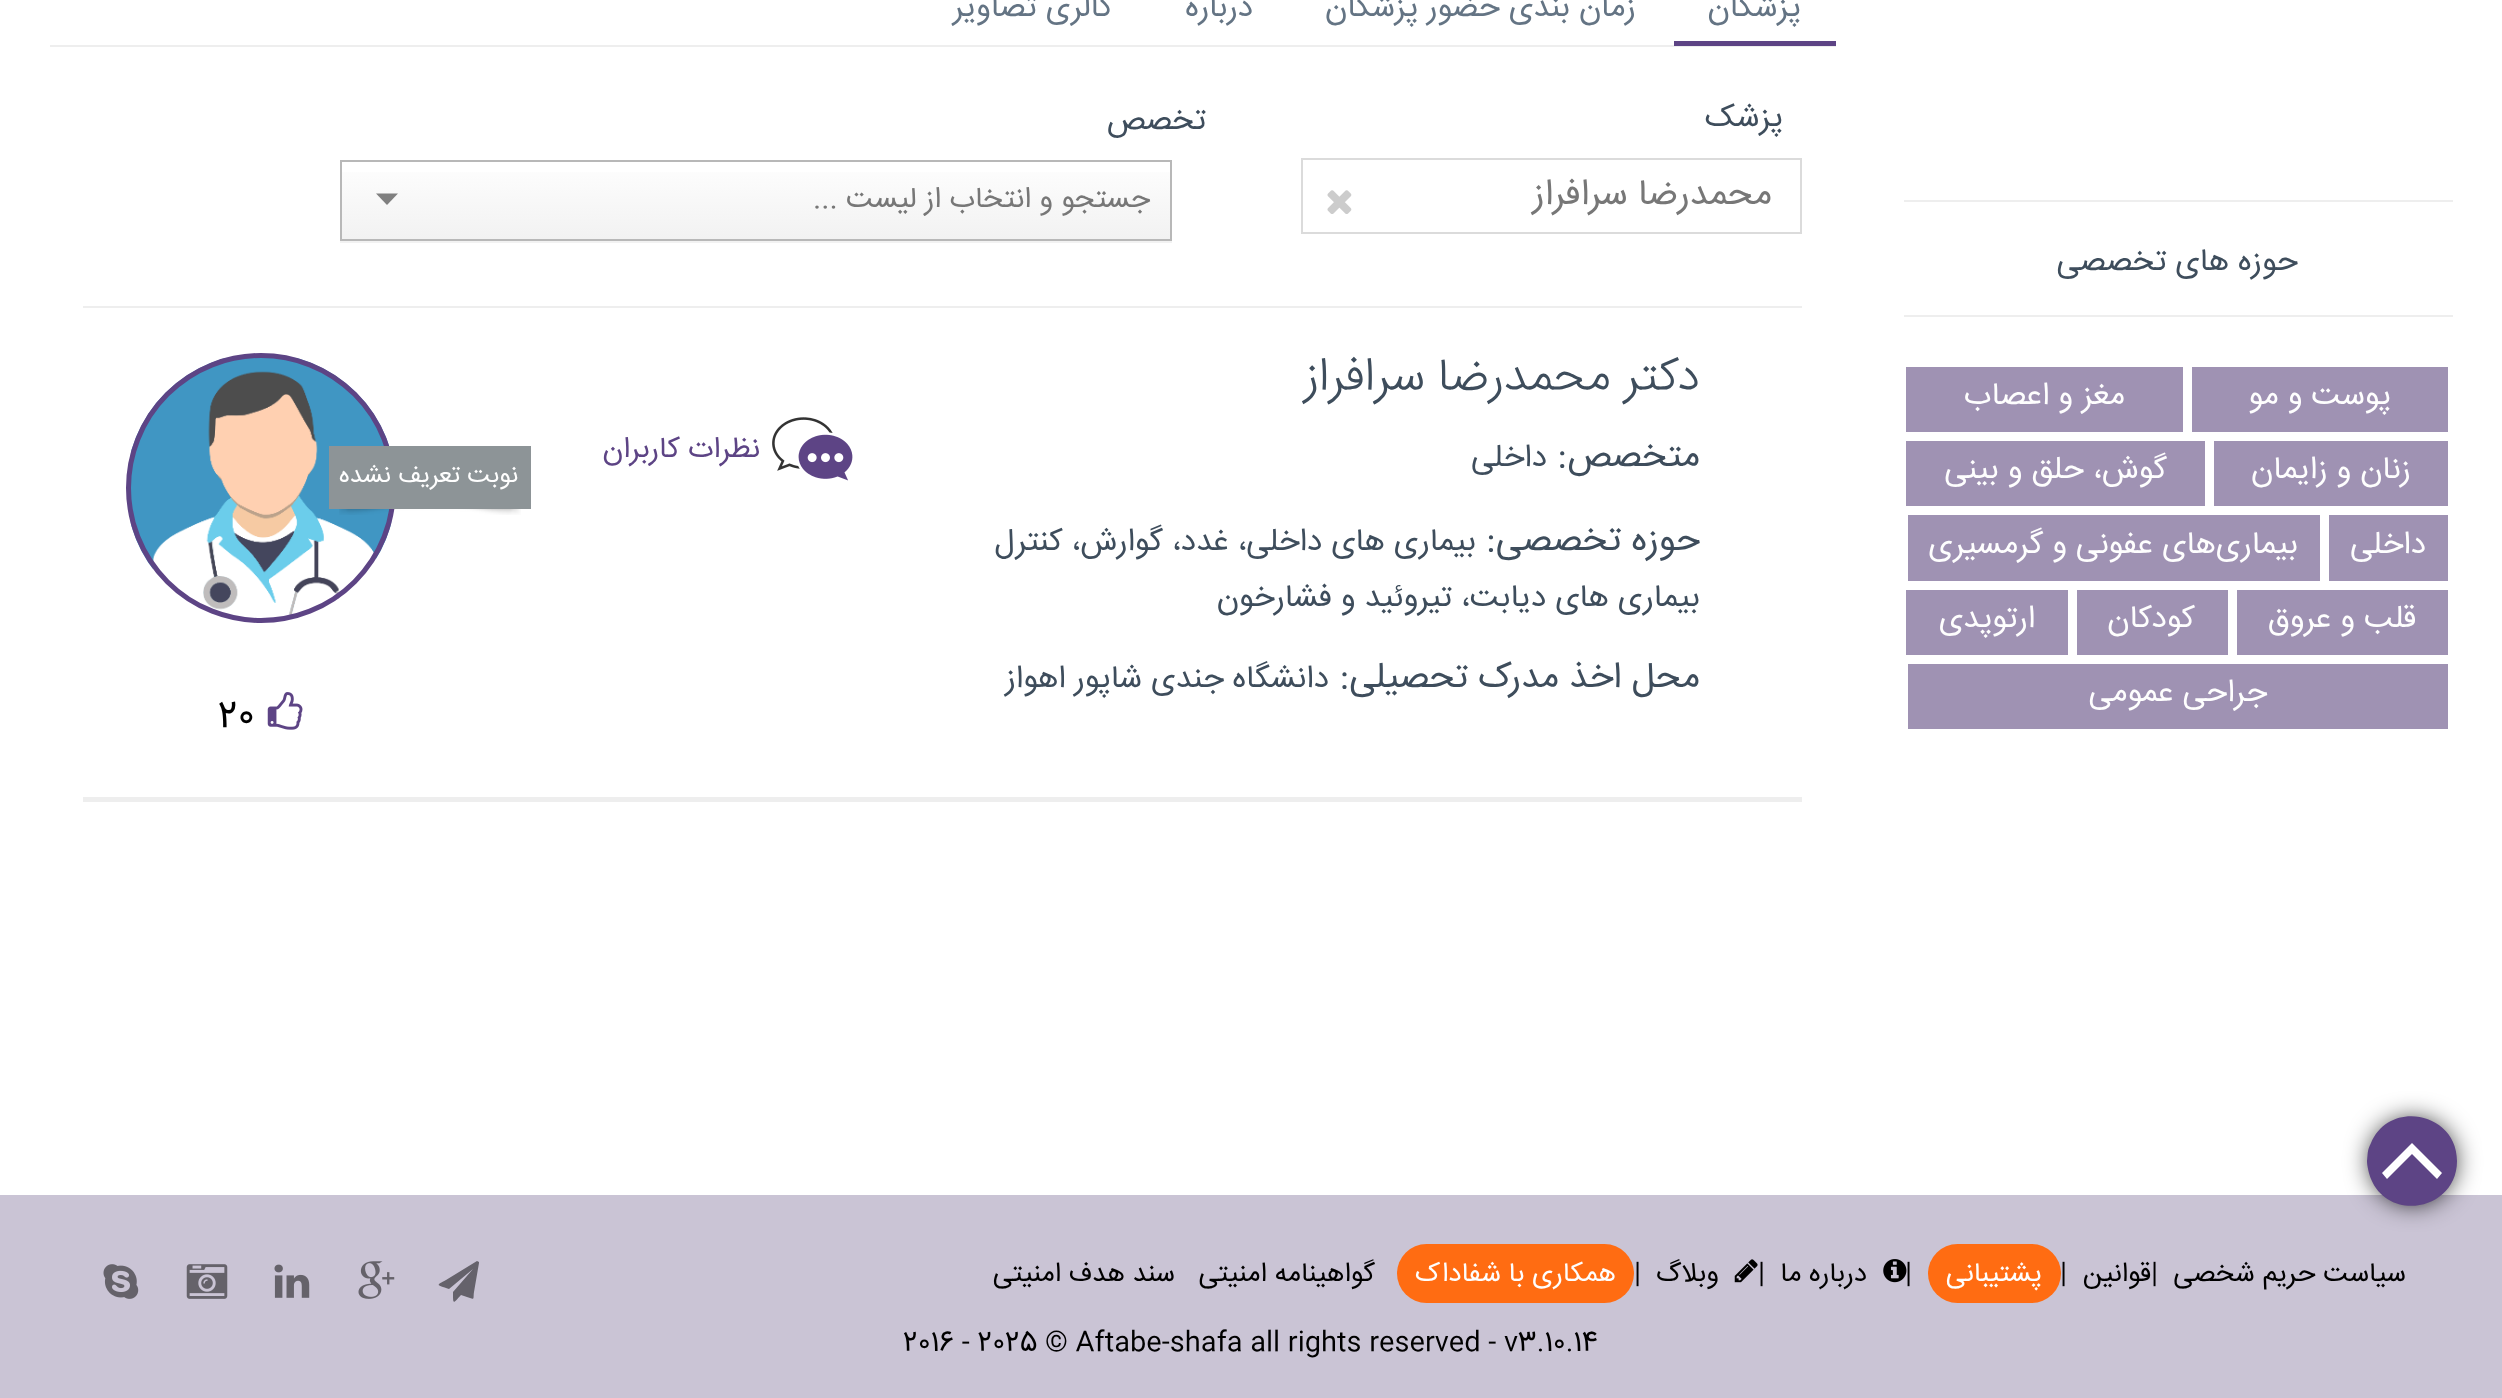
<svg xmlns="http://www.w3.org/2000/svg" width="2502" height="1398">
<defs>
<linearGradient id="g1" gradientUnits="userSpaceOnUse" x1="756" y1="162" x2="756" y2="239"><stop offset="0" stop-color="#fefefe"/><stop offset="1" stop-color="#f2f2f2"/></linearGradient>
</defs>
<rect width="100%" height="100%" fill="#fff"/>
<rect x="1904" y="200" width="549" height="2" fill="#eee"/>
<text x="2298" y="270" style="font-family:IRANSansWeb;font-size:31.5px;direction:rtl;fill:#3e4d5c">حوزه های تخصصی</text>
<rect x="1904" y="315" width="549" height="2" fill="#eee"/>
<rect x="2192" y="367" width="256" height="65" fill="#9f92b3"/>
<text x="2391" y="404" style="font-family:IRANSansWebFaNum;font-size:31.5px;direction:rtl;fill:#fefefe">پوست و مو</text>
<rect x="1906" y="367" width="277" height="65" fill="#9f92b3"/>
<text x="2125" y="404" style="font-family:IRANSansWebFaNum;font-size:31.5px;direction:rtl;fill:#fefefe">مغز و اعصاب</text>
<rect x="2214" y="441" width="234" height="65" fill="#9f92b3"/>
<text x="2411" y="478" style="font-family:IRANSansWebFaNum;font-size:31.5px;direction:rtl;fill:#fefefe">زنان و زایمان</text>
<rect x="1906" y="441" width="299" height="65" fill="#9f92b3"/>
<text x="2167" y="478" style="font-family:IRANSansWebFaNum;font-size:31.5px;direction:rtl;fill:#fefefe">گوش، حلق و بینی</text>
<rect x="2329" y="515" width="119" height="66" fill="#9f92b3"/>
<text x="2426" y="553" style="font-family:IRANSansWebFaNum;font-size:31.5px;direction:rtl;fill:#fefefe">داخلی</text>
<rect x="1908" y="515" width="412" height="66" fill="#9f92b3"/>
<text x="2298" y="553" style="font-family:IRANSansWebFaNum;font-size:31.5px;direction:rtl;fill:#fefefe">بیماری‌های عفونی و گرمسیری</text>
<rect x="2237" y="590" width="211" height="65" fill="#9f92b3"/>
<text x="2416" y="627" style="font-family:IRANSansWebFaNum;font-size:31.5px;direction:rtl;fill:#fefefe">قلب و عروق</text>
<rect x="2077" y="590" width="151" height="65" fill="#9f92b3"/>
<text x="2195" y="627" style="font-family:IRANSansWebFaNum;font-size:31.5px;direction:rtl;fill:#fefefe">کودکان</text>
<rect x="1906" y="590" width="162" height="65" fill="#9f92b3"/>
<text x="2035" y="627" style="font-family:IRANSansWebFaNum;font-size:31.5px;direction:rtl;fill:#fefefe">ارتوپدی</text>
<rect x="1908" y="664" width="540" height="65" fill="#9f92b3"/>
<text x="2267" y="701" style="font-family:IRANSansWebFaNum;font-size:31.5px;direction:rtl;fill:#fefefe">جراحی عمومی</text>
<rect x="50" y="45" width="1786" height="2" fill="#eee"/>
<rect x="1674" y="41" width="162" height="5" fill="#5d4485"/>
<text x="1801" y="16" style="font-family:IRANSansWebFaNum;font-size:31.5px;direction:rtl;fill:#647484">پزشکان</text>
<text x="1636" y="16" style="font-family:IRANSansWebFaNum;font-size:31.5px;direction:rtl;fill:#647484">زمان بندی حضور پزشکان</text>
<text x="1253" y="16" style="font-family:IRANSansWebFaNum;font-size:31.5px;direction:rtl;fill:#647484">درباره</text>
<text x="1113" y="16" style="font-family:IRANSansWebFaNum;font-size:31.5px;direction:rtl;fill:#647484">گالری تصاویر</text>
<text x="1783" y="126" style="font-family:IRANSansWebFaNum;font-size:31.5px;direction:rtl;fill:#3e4d5c">پزشک</text>
<rect x="1302" y="159" width="499" height="74" fill="none" stroke="#dbdbdb" stroke-width="2"/>
<text x="1772" y="204" style="font-family:IRANSansWeb;font-size:36px;direction:rtl;fill:#777">محمدرضا سرافراز</text>
<image x="1327" y="190" width="25" height="24" href="media/1.png"/>
<text x="1206" y="129" style="font-family:IRANSansWebFaNum;font-size:31.5px;direction:rtl;fill:#3e4d5c">تخصص</text>
<rect x="340" y="241" width="832" height="2" fill="#f2f2f2"/>
<rect x="342" y="172" width="828" height="67" fill="url(#g1)"/>
<rect x="341" y="161" width="830" height="79" fill="none" stroke="#b8b8b8" stroke-width="2"/>
<text x="1150" y="207" style="font-family:IRANSansWebFaNum;font-size:29.25px;direction:rtl;fill:#777">جستجو و انتخاب از لیست ...</text>
<path d="M376 193.5h22l-11 11.5z" fill="#808080"/>
<rect x="83" y="306" width="1719" height="2" fill="#eee"/>
<text x="1700" y="390" style="font-family:IRANSansWeb;font-size:47.25px;font-weight:300;direction:rtl;fill:#3e4d5c">دکتر محمدرضا سرافراز</text>
<text x="1700" y="466" style="font-family:IRANSansWebFaNum;font-size:36px;direction:rtl;fill:#3e4d5c">متخصص:</text>
<text x="1547" y="466" style="font-family:IRANSansWebFaNum;font-size:31.5px;direction:rtl;fill:#3e4d5c">داخلی</text>
<text x="1700" y="550" style="font-family:IRANSansWebFaNum;font-size:36px;direction:rtl;fill:#3e4d5c">حوزه تخصصی:</text>
<text x="1476" y="550" style="font-family:IRANSansWebFaNum;font-size:31.5px;direction:rtl;fill:#3e4d5c">بیماری های داخلی، غدد، گوارش، کنترل</text>
<text x="1700" y="606" style="font-family:IRANSansWebFaNum;font-size:31.5px;direction:rtl;fill:#3e4d5c">بیماری های دیابت، تیروئید و فشارخون</text>
<text x="1700" y="687" style="font-family:IRANSansWebFaNum;font-size:36px;direction:rtl;fill:#3e4d5c">محل اخذ مدرک تحصیلی:</text>
<text x="1329" y="687" style="font-family:IRANSansWebFaNum;font-size:31.5px;direction:rtl;fill:#3e4d5c">دانشگاه جندی شاپور اهواز</text>
<image x="772" y="417" width="81" height="64" href="media/2.png"/>
<text x="760" y="457" style="font-family:IRANSansWebFaNum;font-size:29.25px;direction:rtl;fill:#5d4485">نظرات کاربران</text>
<image x="130" y="357" width="262" height="262" href="media/4.png"/>
<circle cx="261" cy="488" r="132.5" fill="none" stroke="#5d4485" stroke-width="5"/>
<image x="339" y="509" width="182" height="6" href="media/3.png"/>
<rect x="329" y="446" width="202" height="63" fill="#8d9497"/>
<text x="518" y="482" style="font-family:IRANSansWebFaNum;font-size:24.75px;direction:rtl;fill:#fefefe">نوبت تعریف نشده</text>
<image x="267" y="692" width="36" height="38" href="media/5.png"/>
<text x="218" y="727" style="font-family:IRANSansWebFaNum;font-size:40px;fill:#000">۲۰</text>
<rect x="83" y="797" width="1719" height="5" fill="#eee"/>
<rect y="1195" width="2502" height="203" fill="#cac4d5"/>
<rect x="2372" y="1121" width="81" height="81" rx="40.5" fill="#000" filter="blur(13.5px)"/>
<path d="M2457 1161c0 49-68 62-86 18c-2-5-4-13-4-18c1-8 0-10 4-18c18-44 86-31 86 18z" fill="#5d4485"/>
<path d="M2412 1154l25 25l5-6l-30-30l-30 30l5 6z" fill="#fff"/>
<text x="2406" y="1281" style="font-family:IRANSansWebFaNum;font-size:27px;direction:rtl;fill:#000">سیاست حریم شخصی</text>
<text x="2151" y="1281" style="font-family:IRANSansWebFaNum;font-size:27px;fill:#000">|</text>
<text x="2151" y="1281" style="font-family:IRANSansWebFaNum;font-size:27px;direction:rtl;fill:#000">قوانین</text>
<text x="2060" y="1281" style="font-family:IRANSansWebFaNum;font-size:27px;fill:#000">|</text>
<rect x="1928" y="1244" width="133" height="59" rx="29.5" fill="#ff6c12"/>
<text x="2042" y="1281" style="font-family:IRANSansWebFaNum;font-size:27px;direction:rtl;fill:#fefefe">پشتیبانی</text>
<text x="1905" y="1281" style="font-family:IRANSansWebFaNum;font-size:27px;fill:#000">|</text>
<image x="1883" y="1259" width="24" height="24" href="media/6.png"/>
<text x="1867" y="1281" style="font-family:IRANSansWebFaNum;font-size:27px;direction:rtl;fill:#000">درباره ما</text>
<text x="1758" y="1281" style="font-family:IRANSansWebFaNum;font-size:27px;fill:#000">|</text>
<image x="1734" y="1259" width="24" height="24" href="media/7.png"/>
<text x="1719" y="1281" style="font-family:IRANSansWebFaNum;font-size:27px;direction:rtl;fill:#000">وبلاگ</text>
<text x="1634" y="1281" style="font-family:IRANSansWebFaNum;font-size:27px;fill:#000">|</text>
<rect x="1397" y="1244" width="237" height="59" rx="29.5" fill="#ff6c12"/>
<text x="1616" y="1281" style="font-family:IRANSansWebFaNum;font-size:27px;direction:rtl;fill:#fefefe">همکاری با شفاداک</text>
<text x="1375" y="1281" style="font-family:IRANSansWebFaNum;font-size:27px;direction:rtl;fill:#000">گواهینامه امنیتی</text>
<text x="1175" y="1281" style="font-family:IRANSansWebFaNum;font-size:27px;direction:rtl;fill:#000">سند هدف امنیتی</text>
<path d="M479 1262v1l-5 29c-1 6 1 8-4 6l-9-3c-8 9-8 10-8-3l20-23l-24 20c-11-4-15-3-3-9l31-19z" fill="#65626b"/>
<image x="358" y="1261" width="37" height="38" href="media/8.png"/>
<image x="274" y="1264" width="36" height="34" href="media/9.png"/>
<image x="186" y="1264" width="42" height="35" href="media/10.png"/>
<image x="103" y="1264" width="36" height="35" href="media/11.png"/>
<text x="903" y="1350" style="font-family:IRANSansWebFaNum;font-size:27px;fill:#000">2016 - 2025 © Aftabe-shafa all rights reserved - v3.10.14</text>
</svg>
